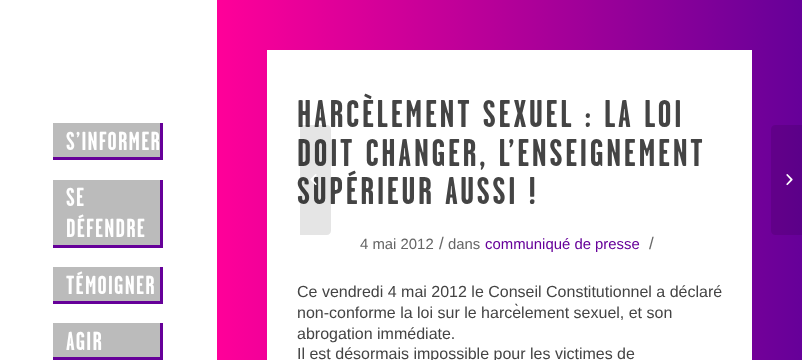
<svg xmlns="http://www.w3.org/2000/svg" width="802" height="360">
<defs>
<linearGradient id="g1" gradientUnits="userSpaceOnUse" x1="217" y1="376" x2="802" y2="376"><stop offset="0" stop-color="#f09"/><stop offset="1" stop-color="#609"/></linearGradient>
</defs>
<rect width="100%" height="100%" fill="#fff"/>
<rect x="217" width="585" height="360" fill="url(#g1)"/>
<rect x="267" y="50" width="485" height="310" fill="#fff"/>
<text x="297" y="127" style="font-family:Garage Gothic;font-size:38.6px;font-weight:bold;letter-spacing:2.7px;fill:#444">HARCÈLEMENT SEXUEL : LA LOI</text>
<text x="297" y="166" style="font-family:Garage Gothic;font-size:38.6px;font-weight:bold;letter-spacing:2.7px;fill:#444">DOIT CHANGER, L’ENSEIGNEMENT</text>
<text x="297" y="204" style="font-family:Garage Gothic;font-size:38.6px;font-weight:bold;letter-spacing:2.7px;fill:#444">SUPÉRIEUR AUSSI !</text>
<text x="360" y="249" style="font-family:Liberation Sans;font-size:14.9px;fill:#666">4 mai 2012</text>
<text x="439" y="249" style="font-family:Liberation Sans;font-size:17px;fill:#666">/</text>
<text x="448" y="249" style="font-family:Liberation Sans;font-size:14.9px;fill:#666">dans</text>
<text x="485" y="249" style="font-family:Liberation Sans;font-size:14.9px;fill:#609">communiqué de presse</text>
<text x="649" y="249" style="font-family:Liberation Sans;font-size:17px;fill:#666">/</text>
<text x="297" y="297" style="font-family:Liberation Sans;font-size:16px;fill:#444">Ce vendredi 4 mai 2012 le Conseil Constitutionnel a déclaré</text>
<text x="297" y="318" style="font-family:Liberation Sans;font-size:16px;fill:#444">non-conforme la loi sur le harcèlement sexuel, et son</text>
<text x="297" y="339" style="font-family:Liberation Sans;font-size:16px;fill:#444">abrogation immédiate.</text>
<text x="297" y="359" style="font-family:Liberation Sans;font-size:16px;fill:#444">Il est désormais impossible pour les victimes de</text>
<rect x="53" y="123" width="107" height="34" fill="#bbb"/>
<rect x="160" y="123" width="3" height="37" fill="#609"/>
<rect x="53" y="157" width="110" height="3" fill="#609"/>
<text x="66" y="150" style="font-family:Garage Gothic;font-size:26px;font-weight:bold;letter-spacing:1.25px;fill:#fff">S’INFORMER</text>
<rect x="53" y="180" width="107" height="65" fill="#bbb"/>
<rect x="160" y="180" width="3" height="68" fill="#609"/>
<rect x="53" y="245" width="110" height="3" fill="#609"/>
<text x="66" y="206" style="font-family:Garage Gothic;font-size:26px;font-weight:bold;letter-spacing:1.25px;fill:#fff">SE</text>
<text x="66" y="237" style="font-family:Garage Gothic;font-size:26px;font-weight:bold;letter-spacing:1.25px;fill:#fff">DÉFENDRE</text>
<rect x="53" y="267" width="107" height="34" fill="#bbb"/>
<rect x="160" y="267" width="3" height="37" fill="#609"/>
<rect x="53" y="301" width="110" height="3" fill="#609"/>
<text x="66" y="294" style="font-family:Garage Gothic;font-size:26px;font-weight:bold;letter-spacing:1.25px;fill:#fff">TÉMOIGNER</text>
<rect x="53" y="323" width="107" height="34" fill="#bbb"/>
<rect x="160" y="323" width="3" height="37" fill="#609"/>
<rect x="53" y="357" width="110" height="3" fill="#609"/>
<text x="66" y="350" style="font-family:Garage Gothic;font-size:26px;font-weight:bold;letter-spacing:1.25px;fill:#fff">AGIR</text>
<path d="M300 125h27c2 0 4 2 4 4v102c0 2-2 4-4 4h-27z" fill="#0000001a"/>
<image x="310" y="174" width="7" height="12" href="media/1.png"/>
<path d="M775 125h27v110h-27c-2 0-4-2-4-4v-102c0-2 2-4 4-4z" fill="#0000001a"/>
<image x="786" y="174" width="7" height="12" href="media/2.png"/>
</svg>
